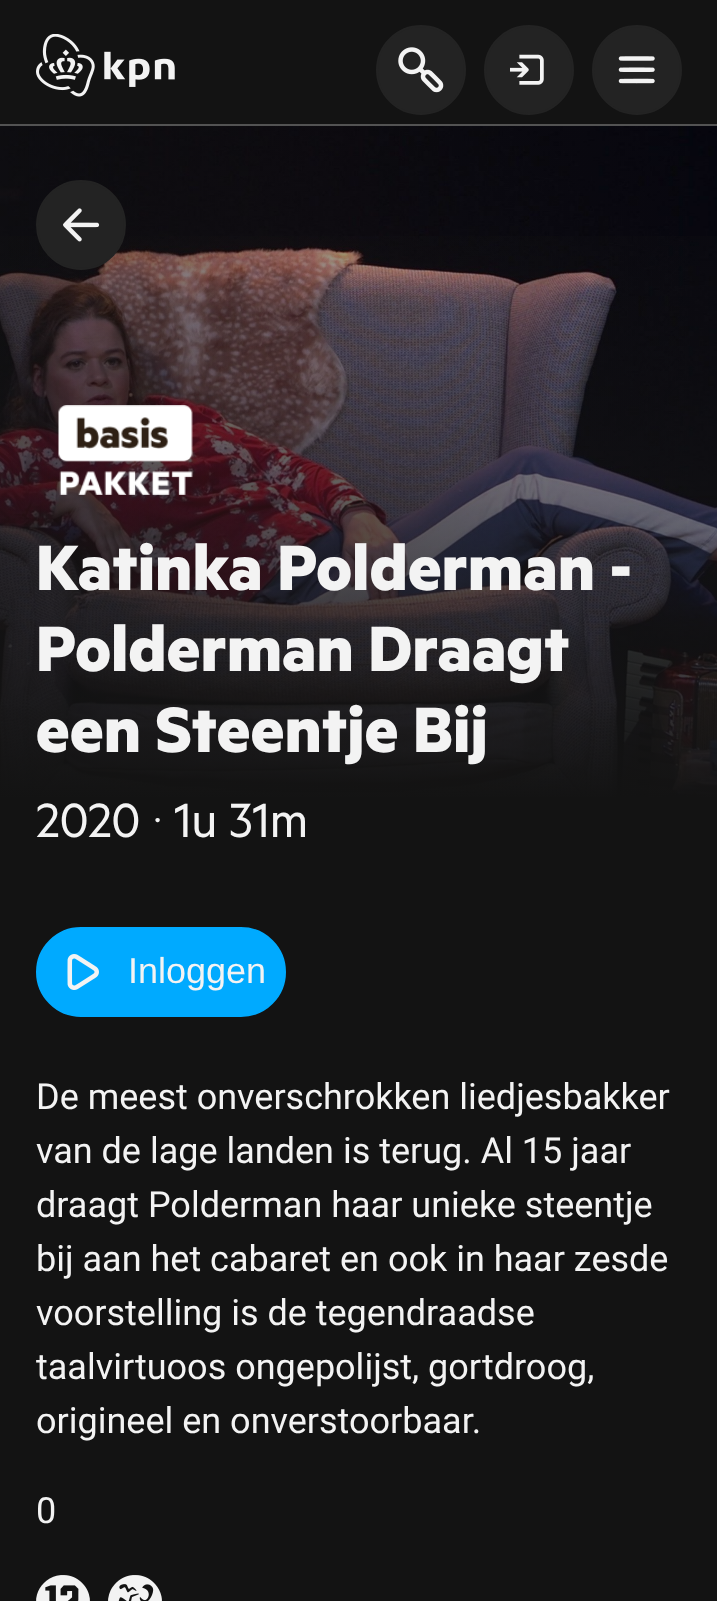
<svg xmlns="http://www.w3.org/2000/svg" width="717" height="1601">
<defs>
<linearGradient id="g1" gradientUnits="userSpaceOnUse" x1="0" y1="455" x2="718" y2="455"><stop offset="0" stop-color="#131313" stop-opacity="0.5"/><stop offset="1" stop-color="#131313" stop-opacity="0"/></linearGradient>
<linearGradient id="g2" gradientUnits="userSpaceOnUse" x1="359" y1="108" x2="359" y2="801"><stop offset="0" stop-color="#131313" stop-opacity="0"/><stop offset="1" stop-color="#131313"/></linearGradient>
</defs>
<rect width="100%" height="100%" fill="#131313"/>
<rect y="124" width="717" height="2" fill="#535353"/>
<image x="36" y="34" width="139" height="63" href="media/1.png"/>
<circle cx="421" cy="70" r="44" fill="#232323" stroke="#232323" stroke-width="2"/>
<image x="398" y="47" width="46" height="46" href="media/2.png"/>
<circle cx="529" cy="70" r="44" fill="#232323" stroke="#232323" stroke-width="2"/>
<image x="510" y="54" width="34" height="31" href="media/3.png"/>
<circle cx="637" cy="70" r="44" fill="#232323" stroke="#232323" stroke-width="2"/>
<image x="618" y="56" width="37" height="28" href="media/4.png"/>
<image x="0" y="126" width="717" height="671" href="media/5.png"/>
<rect y="126" width="687" height="671" fill="url(#g1)"/>
<rect y="236" width="717" height="561" fill="url(#g2)"/>
<circle cx="81" cy="225" r="44" fill="#232323" stroke="#232323" stroke-width="2"/>
<image x="63" y="208" width="37" height="34" href="media/6.png"/>
<image x="58" y="405" width="135" height="90" href="media/7.png"/>
<text x="36" y="590" style="font-family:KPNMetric;font-size:72px;font-weight:bold;fill:#f3f3f3">Katinka Polderman -</text>
<text x="36" y="671" style="font-family:KPNMetric;font-size:72px;font-weight:bold;fill:#f3f3f3">Polderman Draagt</text>
<text x="36" y="752" style="font-family:KPNMetric;font-size:72px;font-weight:bold;fill:#f3f3f3">een Steentje Bij</text>
<text x="36" y="837" style="font-family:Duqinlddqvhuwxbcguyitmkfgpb;font-size:54px;fill:#f3f3f3">2020</text>
<text x="153" y="837" style="font-family:Roboto;font-size:54px;font-weight:300;fill:#f3f3f3">‧</text>
<text x="174" y="837" style="font-family:Duqinlddqvhuwxbcguyitmkfgpb;font-size:54px;fill:#f3f3f3">1u 31m</text>
<rect x="37" y="928" width="248" height="88" rx="44" fill="#0af" stroke="#0af" stroke-width="2"/>
<image x="67" y="954" width="32" height="36" href="media/8.png"/>
<text x="128" y="983" style="font-family:Liberation Sans;font-size:36px;fill:#f3f3f3">Inloggen</text>
<text x="36" y="1109" style="font-family:Roboto;font-size:36px;fill:#f3f3f3">De meest onverschrokken liedjesbakker</text>
<text x="36" y="1163" style="font-family:Roboto;font-size:36px;fill:#f3f3f3">van de lage landen is terug. Al 15 jaar</text>
<text x="36" y="1217" style="font-family:Roboto;font-size:36px;fill:#f3f3f3">draagt Polderman haar unieke steentje</text>
<text x="36" y="1271" style="font-family:Roboto;font-size:36px;fill:#f3f3f3">bij aan het cabaret en ook in haar zesde</text>
<text x="36" y="1325" style="font-family:Roboto;font-size:36px;fill:#f3f3f3">voorstelling is de tegendraadse</text>
<text x="36" y="1379" style="font-family:Roboto;font-size:36px;fill:#f3f3f3">taalvirtuoos ongepolijst, gortdroog,</text>
<text x="36" y="1433" style="font-family:Roboto;font-size:36px;fill:#f3f3f3">origineel en onverstoorbaar.</text>
<text x="36" y="1523" style="font-family:Roboto;font-size:36px;fill:#f3f3f3">0</text>
<image x="36" y="1575" width="54" height="26" href="media/9.png"/>
<image x="108" y="1575" width="54" height="26" href="media/10.png"/>
</svg>
